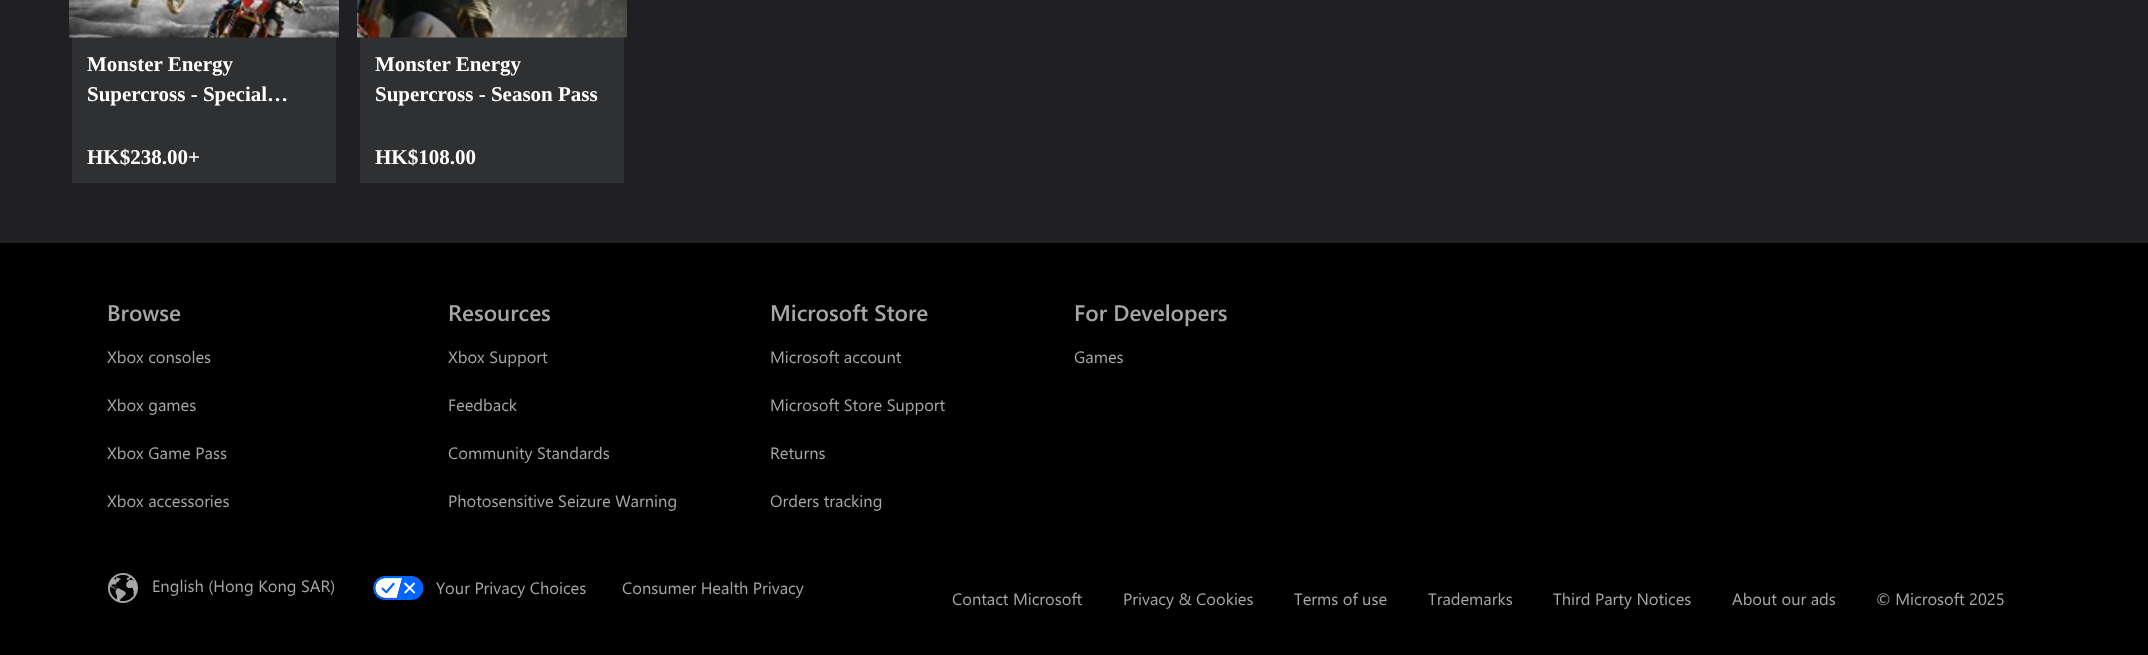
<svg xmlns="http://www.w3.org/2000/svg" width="2148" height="655">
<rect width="100%" height="100%" fill="#201f24"/>
<rect x="72" y="37" width="264" height="146" fill="#2f3032"/>
<image x="69" y="0" width="270" height="38" href="media/1.png"/>
<text x="87" y="71" style="font-family:Liberation Serif;font-size:21px;font-weight:bold;fill:#fff">Monster Energy</text>
<text x="87" y="101" style="font-family:Liberation Serif;font-size:21px;font-weight:bold;fill:#fff">Supercross - Special…</text>
<text x="87" y="164" style="font-family:Liberation Serif;font-size:21px;font-weight:bold;fill:#fff">HK$238.00+</text>
<rect x="360" y="37" width="264" height="146" fill="#2f3032"/>
<image x="357" y="0" width="270" height="38" href="media/2.png"/>
<text x="375" y="71" style="font-family:Liberation Serif;font-size:21px;font-weight:bold;fill:#fff">Monster Energy</text>
<text x="375" y="101" style="font-family:Liberation Serif;font-size:21px;font-weight:bold;fill:#fff">Supercross - Season Pass</text>
<text x="375" y="164" style="font-family:Liberation Serif;font-size:21px;font-weight:bold;fill:#fff">HK$108.00</text>
<rect y="243" width="2148" height="412" fill="#000"/>
<text x="107" y="321" style="font-family:Segoe UI;font-size:22.5px;font-weight:600;fill:#a7a7a7">Browse</text>
<text x="107" y="363" style="font-family:Segoe UI;font-size:16.5px;fill:#a7a7a7">Xbox consoles</text>
<text x="107" y="411" style="font-family:Segoe UI;font-size:16.5px;fill:#a7a7a7">Xbox games</text>
<text x="107" y="459" style="font-family:Segoe UI;font-size:16.5px;fill:#a7a7a7">Xbox Game Pass</text>
<text x="107" y="507" style="font-family:Segoe UI;font-size:16.5px;fill:#a7a7a7">Xbox accessories</text>
<text x="448" y="321" style="font-family:Segoe UI;font-size:22.5px;font-weight:600;fill:#a7a7a7">Resources</text>
<text x="448" y="363" style="font-family:Segoe UI;font-size:16.5px;fill:#a7a7a7">Xbox Support</text>
<text x="448" y="411" style="font-family:Segoe UI;font-size:16.5px;fill:#a7a7a7">Feedback</text>
<text x="448" y="459" style="font-family:Segoe UI;font-size:16.5px;fill:#a7a7a7">Community Standards</text>
<text x="448" y="507" style="font-family:Segoe UI;font-size:16.5px;fill:#a7a7a7">Photosensitive Seizure Warning</text>
<text x="770" y="321" style="font-family:Segoe UI;font-size:22.5px;font-weight:600;fill:#a7a7a7">Microsoft Store</text>
<text x="770" y="363" style="font-family:Segoe UI;font-size:16.5px;fill:#a7a7a7">Microsoft account</text>
<text x="770" y="411" style="font-family:Segoe UI;font-size:16.5px;fill:#a7a7a7">Microsoft Store Support</text>
<text x="770" y="459" style="font-family:Segoe UI;font-size:16.5px;fill:#a7a7a7">Returns</text>
<text x="770" y="507" style="font-family:Segoe UI;font-size:16.5px;fill:#a7a7a7">Orders tracking</text>
<text x="1074" y="321" style="font-family:Segoe UI;font-size:22.5px;font-weight:600;fill:#a7a7a7">For Developers</text>
<text x="1074" y="363" style="font-family:Segoe UI;font-size:16.5px;fill:#a7a7a7">Games</text>
<image x="108" y="573" width="30" height="30" href="media/3.png"/>
<text x="152" y="592" style="font-family:Segoe UI;font-size:16.5px;fill:#a7a7a7">English (Hong Kong SAR)</text>
<image x="373" y="576" width="51" height="24" href="media/4.png"/>
<text x="436" y="594" style="font-family:Segoe UI;font-size:16.5px;fill:#a7a7a7">Your Privacy Choices</text>
<text x="622" y="594" style="font-family:Segoe UI;font-size:16.5px;fill:#a7a7a7">Consumer Health Privacy</text>
<text x="952" y="605" style="font-family:Segoe UI;font-size:16.5px;fill:#a7a7a7">Contact Microsoft</text>
<text x="1123" y="605" style="font-family:Segoe UI;font-size:16.5px;fill:#a7a7a7">Privacy &amp; Cookies</text>
<text x="1294" y="605" style="font-family:Segoe UI;font-size:16.5px;fill:#a7a7a7">Terms of use</text>
<text x="1428" y="605" style="font-family:Segoe UI;font-size:16.5px;fill:#a7a7a7">Trademarks</text>
<text x="1553" y="605" style="font-family:Segoe UI;font-size:16.5px;fill:#a7a7a7">Third Party Notices</text>
<text x="1732" y="605" style="font-family:Segoe UI;font-size:16.5px;fill:#a7a7a7">About our ads</text>
<text x="1876" y="605" style="font-family:Segoe UI;font-size:16.5px;fill:#a7a7a7">© Microsoft 2025</text>
</svg>
